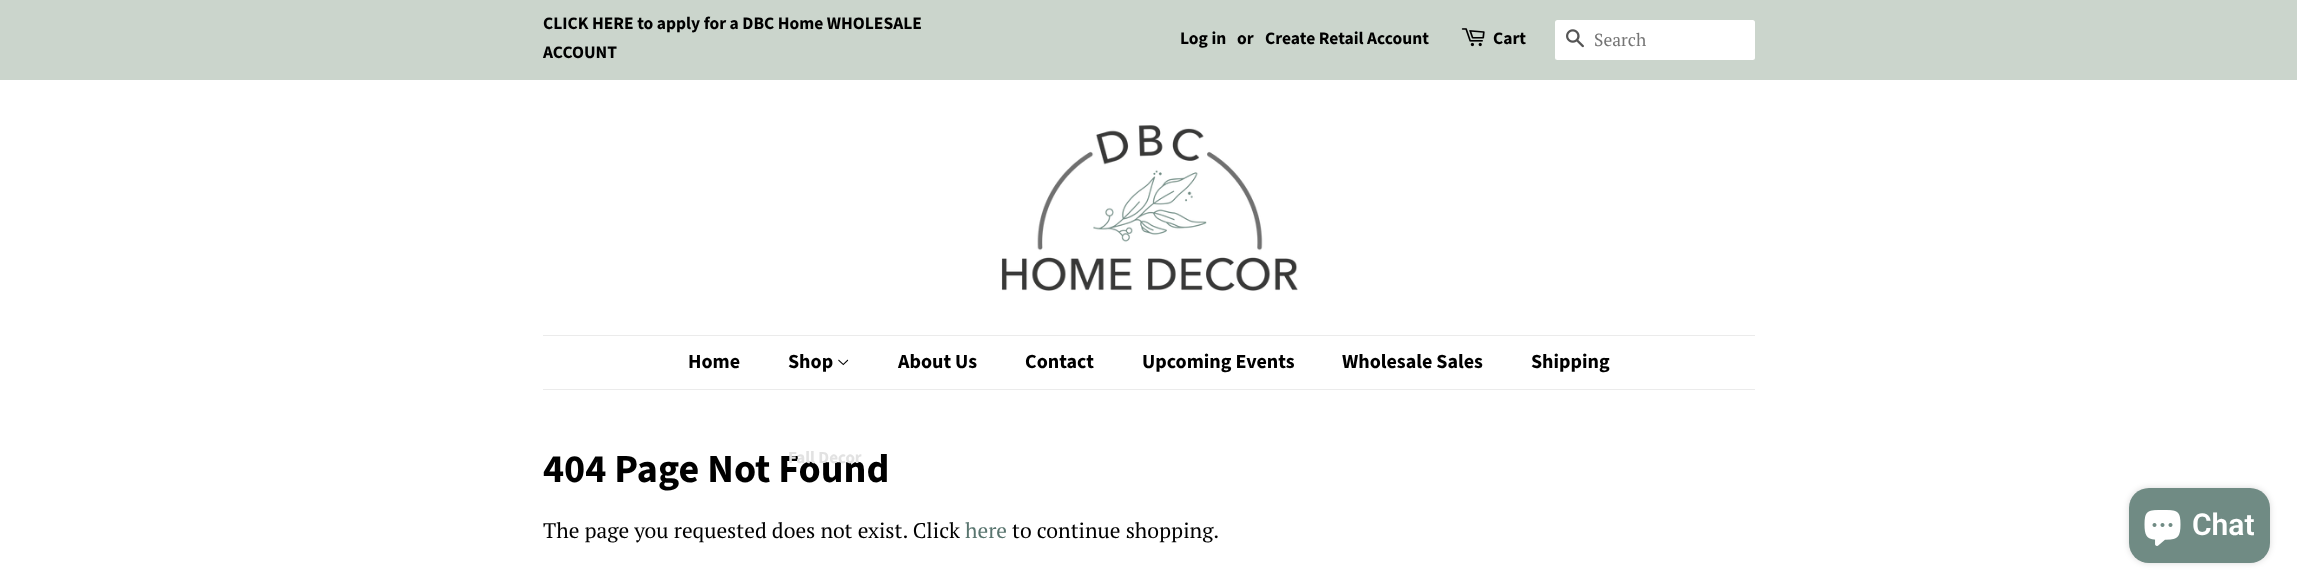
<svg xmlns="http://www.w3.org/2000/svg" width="2297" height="588">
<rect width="100%" height="100%" fill="#fff"/>
<rect width="2297" height="80" fill="#cbd5cc"/>
<text x="543" y="29" style="font-family:Source Sans Pro;font-size:17.5px;font-weight:bold;fill:#000">CLICK HERE to apply for a DBC Home WHOLESALE</text>
<text x="543" y="58" style="font-family:Source Sans Pro;font-size:17.5px;font-weight:bold;fill:#000">ACCOUNT</text>
<text x="1180" y="44" style="font-family:Source Sans Pro;font-size:17.5px;font-weight:bold;fill:#000">Log in</text>
<text x="1237" y="44" style="font-family:Source Sans Pro;font-size:17.5px;font-weight:bold;fill:#000">or</text>
<text x="1265" y="44" style="font-family:Source Sans Pro;font-size:17.5px;font-weight:bold;fill:#000">Create Retail Account</text>
<image x="1461" y="28" width="24" height="19" href="media/1.png"/>
<text x="1493" y="44" style="font-family:Source Sans Pro;font-size:17.5px;font-weight:bold;fill:#000">Cart</text>
<rect x="1555" y="20" width="200" height="40" rx="2.5" fill="#fff"/>
<image x="1566" y="29" width="18" height="19" href="media/2.png"/>
<text x="1594" y="46" style="font-family:PT Serif;font-size:17.5px;fill:#757575">Search</text>
<image x="1001" y="125" width="297" height="166" href="media/3.png"/>
<rect x="543" y="335" width="1212" height="1" fill="#ebebeb"/>
<rect x="543" y="389" width="1212" height="1" fill="#ebebeb"/>
<text x="688" y="368" style="font-family:Source Sans Pro;font-size:20px;font-weight:bold;fill:#000">Home</text>
<text x="788" y="368" style="font-family:Source Sans Pro;font-size:20px;font-weight:bold;fill:#000">Shop</text>
<image x="838" y="359" width="11" height="7" href="media/4.png"/>
<text x="543" y="482" style="font-family:Source Sans Pro;font-size:40px;font-weight:bold;fill:#000">404 Page Not Found</text>
<text x="788" y="463" style="font-family:Source Sans Pro;font-size:17px;font-weight:bold;fill:#e2e2e2">Fall Decor</text>
<text x="898" y="368" style="font-family:Source Sans Pro;font-size:20px;font-weight:bold;fill:#000">About Us</text>
<text x="1025" y="368" style="font-family:Source Sans Pro;font-size:20px;font-weight:bold;fill:#000">Contact</text>
<text x="1142" y="368" style="font-family:Source Sans Pro;font-size:20px;font-weight:bold;fill:#000">Upcoming Events</text>
<text x="1342" y="368" style="font-family:Source Sans Pro;font-size:20px;font-weight:bold;fill:#000">Wholesale Sales</text>
<text x="1531" y="368" style="font-family:Source Sans Pro;font-size:20px;font-weight:bold;fill:#000">Shipping</text>
<text x="543" y="538" style="font-family:PT Serif;font-size:21.25px;fill:#000">The page you requested does not exist. Click</text>
<text x="965" y="538" style="font-family:PT Serif;font-size:21.25px;fill:#59756f">here</text>
<text x="1012" y="538" style="font-family:PT Serif;font-size:21.25px;fill:#000">to continue shopping.</text>
<rect x="2129" y="488" width="141" height="75" rx="20" fill="#00000026" filter="blur(3px)"/>
<rect x="2129" y="488" width="141" height="75" rx="20" fill="#708b84"/>
<image x="2144" y="510" width="37" height="36" href="media/5.png"/>
<text x="2192" y="535" style="font-family:Roboto;font-size:30px;font-weight:600;fill:#fff">Chat</text>
</svg>
